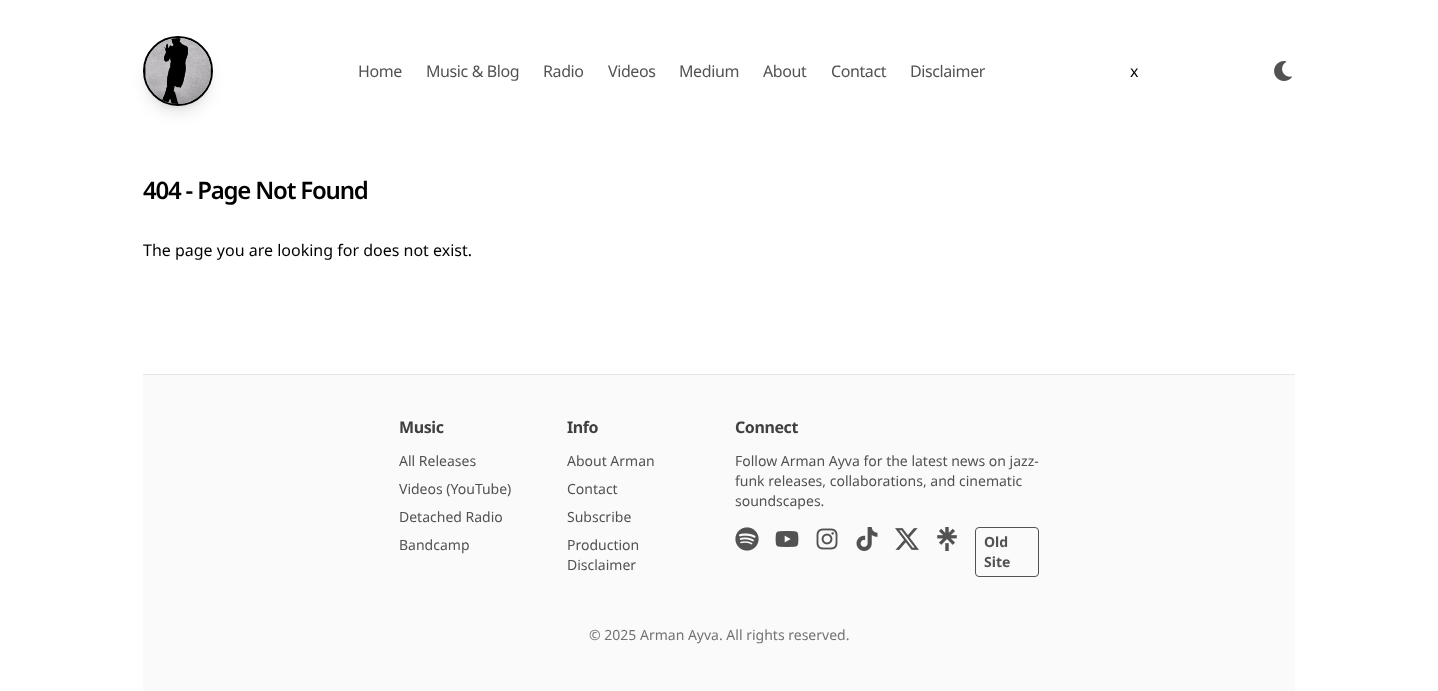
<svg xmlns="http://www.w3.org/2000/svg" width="1438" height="691">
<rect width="100%" height="100%" fill="#fff"/>
<rect x="147" y="44" width="62" height="62" rx="31" fill="#0000001a" filter="blur(3px)"/>
<rect x="146" y="49" width="64" height="64" rx="32" fill="#0000001a" filter="blur(7.5px)"/>
<circle cx="178" cy="71" r="34" fill="none" stroke="#000" stroke-width="2"/>
<image x="145" y="38" width="66" height="66" href="media/1.png"/>
<text x="358" y="77" style="font-family:Noto Sans;font-size:16px;letter-spacing:-0.4px;fill:#525252">Home</text>
<text x="426" y="77" style="font-family:Noto Sans;font-size:16px;letter-spacing:-0.4px;fill:#525252">Music &amp; Blog</text>
<text x="543" y="77" style="font-family:Noto Sans;font-size:16px;letter-spacing:-0.4px;fill:#525252">Radio</text>
<text x="608" y="77" style="font-family:Noto Sans;font-size:16px;letter-spacing:-0.4px;fill:#525252">Videos</text>
<text x="679" y="77" style="font-family:Noto Sans;font-size:16px;letter-spacing:-0.4px;fill:#525252">Medium</text>
<text x="763" y="77" style="font-family:Noto Sans;font-size:16px;letter-spacing:-0.4px;fill:#525252">About</text>
<text x="831" y="77" style="font-family:Noto Sans;font-size:16px;letter-spacing:-0.4px;fill:#525252">Contact</text>
<text x="910" y="77" style="font-family:Noto Sans;font-size:16px;letter-spacing:-0.4px;fill:#525252">Disclaimer</text>
<text x="1130" y="77" style="font-family:Noto Sans;font-size:16px;letter-spacing:-0.4px;fill:#000">x</text>
<image x="1274" y="61" width="18" height="20" href="media/2.png"/>
<text x="143" y="199" style="font-family:Noto Sans;font-size:24px;font-weight:600;letter-spacing:-1.2px;fill:#000">404 - Page Not Found</text>
<text x="143" y="256" style="font-family:Noto Sans;font-size:16px;fill:#000">The page you are looking for does not exist.</text>
<rect x="143" y="375" width="1152" height="316" fill="#fafafa"/>
<rect x="143" y="374" width="1152" height="1" fill="#e5e5e5"/>
<text x="399" y="433" style="font-family:Noto Sans;font-size:16px;font-weight:bold;letter-spacing:-0.4px;fill:#404040">Music</text>
<text x="399" y="466" style="font-family:Noto Sans;font-size:14px;fill:#525252">All Releases</text>
<text x="399" y="494" style="font-family:Noto Sans;font-size:14px;fill:#525252">Videos (YouTube)</text>
<text x="399" y="522" style="font-family:Noto Sans;font-size:14px;fill:#525252">Detached Radio</text>
<text x="399" y="550" style="font-family:Noto Sans;font-size:14px;fill:#525252">Bandcamp</text>
<text x="567" y="433" style="font-family:Noto Sans;font-size:16px;font-weight:bold;letter-spacing:-0.4px;fill:#404040">Info</text>
<text x="567" y="466" style="font-family:Noto Sans;font-size:14px;fill:#525252">About Arman</text>
<text x="567" y="494" style="font-family:Noto Sans;font-size:14px;fill:#525252">Contact</text>
<text x="567" y="522" style="font-family:Noto Sans;font-size:14px;fill:#525252">Subscribe</text>
<text x="567" y="550" style="font-family:Noto Sans;font-size:14px;fill:#525252">Production</text>
<text x="567" y="570" style="font-family:Noto Sans;font-size:14px;fill:#525252">Disclaimer</text>
<text x="735" y="433" style="font-family:Noto Sans;font-size:16px;font-weight:bold;letter-spacing:-0.4px;fill:#404040">Connect</text>
<text x="735" y="466" style="font-family:Noto Sans;font-size:14px;fill:#525252">Follow Arman Ayva for the latest news on jazz-</text>
<text x="735" y="486" style="font-family:Noto Sans;font-size:14px;fill:#525252">funk releases, collaborations, and cinematic</text>
<text x="735" y="506" style="font-family:Noto Sans;font-size:14px;fill:#525252">soundscapes.</text>
<image x="735" y="527" width="24" height="24" href="media/3.png"/>
<image x="775" y="531" width="24" height="16" href="media/4.png"/>
<image x="816" y="528" width="22" height="22" href="media/5.png"/>
<image x="856" y="527" width="22" height="24" href="media/6.png"/>
<image x="895" y="528" width="24" height="22" href="media/7.png"/>
<image x="937" y="527" width="20" height="24" href="media/8.png"/>
<rect x="975.5" y="527.5" width="63" height="49" rx="3.5" fill="none" stroke="#525252"/>
<text x="984" y="547" style="font-family:Noto Sans;font-size:14px;font-weight:bold;fill:#525252">Old</text>
<text x="984" y="567" style="font-family:Noto Sans;font-size:14px;font-weight:bold;fill:#525252">Site</text>
<text x="589" y="640" style="font-family:Noto Sans;font-size:14px;fill:#737373">© 2025 Arman Ayva. All rights reserved.</text>
</svg>
